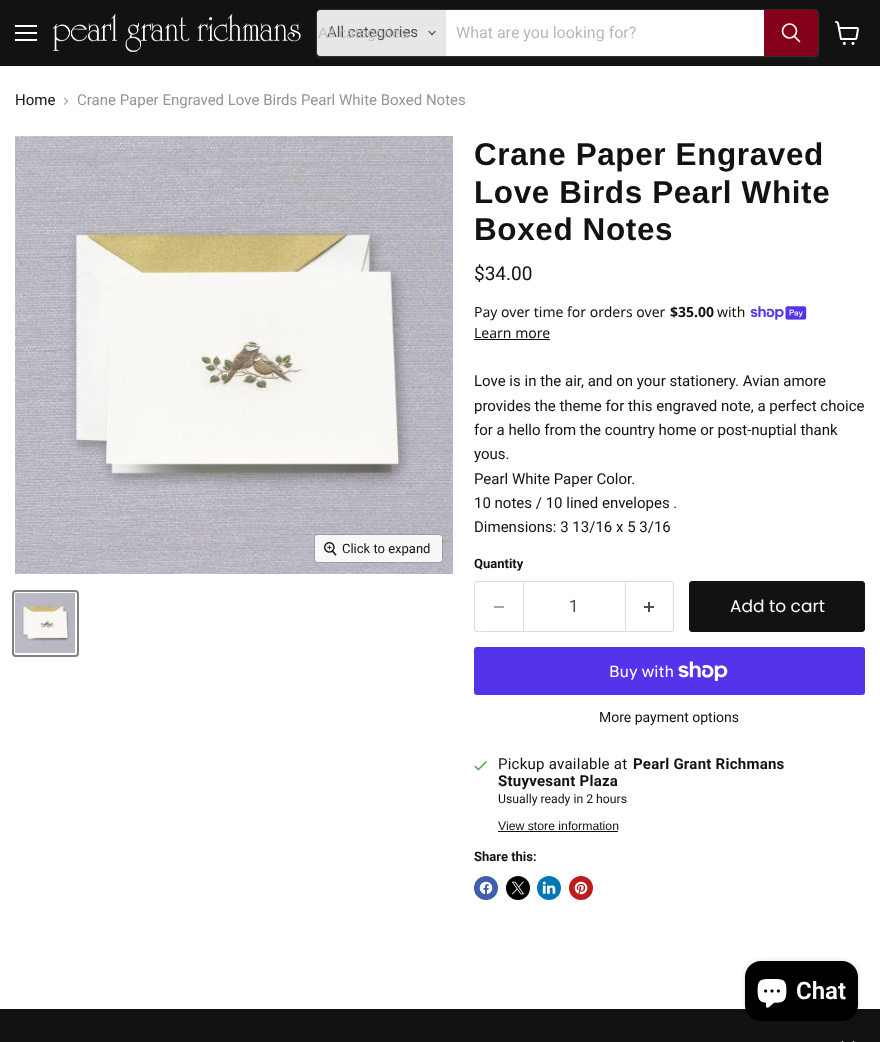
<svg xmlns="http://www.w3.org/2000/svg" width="880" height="1042">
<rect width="100%" height="100%" fill="#fff"/>
<rect width="880" height="66" fill="#121212"/>
<rect x="15" y="25" width="22" height="2" fill="#fff"/>
<rect x="15" y="32" width="22" height="2" fill="#fff"/>
<rect x="15" y="39" width="22" height="2" fill="#fff"/>
<image x="52" y="14" width="249" height="38" href="media/1.png"/>
<rect x="316" y="11" width="503" height="48" rx="4" fill="#8080801c" filter="blur(1.5px)"/>
<rect x="316.5" y="9.5" width="502" height="47" rx="3.5" fill="none" stroke="#80808033"/>
<path d="M320 10h126v46h-126c-1.5 0-3-1.5-3-3v-40c0-1.5 1.5-3 3-3z" fill="#e7e7e7"/>
<text x="327" y="37" style="font-family:Roboto;font-size:15px;fill:#4d4d4d">All categories</text>
<text x="318" y="38" style="font-family:Liberation Sans;font-size:15px;fill:#c1c1c1">All categories</text>
<image x="428" y="30" width="8" height="6" href="media/2.png"/>
<rect x="446" y="10" width="318" height="46" fill="#fff"/>
<text x="456" y="38" style="font-family:Roboto;font-size:16px;fill:#b8b8b8">What are you looking for?</text>
<path d="M764.5 10.5h50.5c1.5 0 2.5 1 2.5 2.5v40c0 1.5-1 2.5-2.5 2.5h-50.5z" fill="#85001a" stroke="#85001a"/>
<path d="M799.5 41.5l-5-5" fill="none" stroke="#fff" stroke-width="1.7" stroke-linecap="round"/>
<circle cx="789.5" cy="31" r="7" fill="none" stroke="#fff" stroke-width="1.7"/>
<image x="835" y="21" width="24" height="24" href="media/3.png"/>
<text x="15" y="105" style="font-family:Roboto;font-size:15px;fill:#121212">Home</text>
<image x="64" y="97" width="4" height="8" href="media/4.png"/>
<text x="77" y="105" style="font-family:Roboto;font-size:15px;fill:#949494">Crane Paper Engraved Love Birds Pearl White Boxed Notes</text>
<image x="15" y="136" width="438" height="438" href="media/5.png"/>
<rect x="314.5" y="534.5" width="128" height="28" rx="3.5" fill="none" stroke="#00000026"/>
<rect x="315" y="535" width="127" height="27" rx="3" fill="#ffffffe6"/>
<image x="324" y="542" width="13" height="14" href="media/6.png"/>
<text x="342" y="553" style="font-family:Roboto;font-size:13px;fill:#121212">Click to expand</text>
<rect x="13" y="591" width="65" height="65" rx="3" fill="none" stroke="#818181" stroke-width="2"/>
<image x="15" y="593" width="60" height="60" href="media/7.png"/>
<text x="474" y="165" style="font-family:Liberation Sans;font-size:31.5px;font-weight:bold;letter-spacing:0.6px;fill:#121212">Crane Paper Engraved</text>
<text x="474" y="203" style="font-family:Liberation Sans;font-size:31.5px;font-weight:bold;letter-spacing:0.6px;fill:#121212">Love Birds Pearl White</text>
<text x="474" y="240" style="font-family:Liberation Sans;font-size:31.5px;font-weight:bold;letter-spacing:0.6px;fill:#121212">Boxed Notes</text>
<text x="474" y="280" style="font-family:Roboto;font-size:19px;fill:#121212">$34.00</text>
<text x="474" y="317" style="font-family:Noto Sans;font-size:14px;fill:#121212">Pay over time for orders over</text>
<text x="670" y="317" style="font-family:Noto Sans;font-size:14px;font-weight:bold;fill:#121212">$35.00</text>
<text x="717" y="317" style="font-family:Noto Sans;font-size:14px;fill:#121212">with</text>
<image x="750" y="306" width="57" height="14" href="media/8.png"/>
<text x="474" y="338" style="font-family:Noto Sans;font-size:14px;fill:#121212">Learn more</text>
<rect x="474" y="339" width="76" height="1" fill="#121212"/>
<text x="474" y="386" style="font-family:Roboto;font-size:15px;fill:#121212">Love is in the air, and on your stationery. Avian amore</text>
<text x="474" y="411" style="font-family:Roboto;font-size:15px;fill:#121212">provides the theme for this engraved note, a perfect choice</text>
<text x="474" y="435" style="font-family:Roboto;font-size:15px;fill:#121212">for a hello from the country home or post-nuptial thank</text>
<text x="474" y="459" style="font-family:Roboto;font-size:15px;fill:#121212">yous.</text>
<text x="474" y="484" style="font-family:Roboto;font-size:15px;fill:#121212">Pearl White Paper Color.</text>
<text x="474" y="508" style="font-family:Roboto;font-size:15px;fill:#121212">10 notes / 10 lined envelopes .</text>
<text x="474" y="532" style="font-family:Roboto;font-size:15px;fill:#121212">Dimensions: 3 13/16 x 5 3/16</text>
<text x="474" y="568" style="font-family:Roboto;font-size:13px;font-weight:bold;fill:#121212">Quantity</text>
<path d="M477 581h46v51h-46c-2 0-3-1-3-3v-45c0-2 1-3 3-3zm0 1h46v49h-38c-4 0-10 1-10-2v-46z" fill="#ddd" fill-rule="evenodd"/>
<rect x="494" y="606" width="10" height="2" fill="#a6a6a6"/>
<rect x="523.5" y="581.5" width="102" height="50" fill="none" stroke="#ddd"/>
<text x="569" y="612" style="font-family:Roboto;font-size:17px;fill:#4d4d4d">1</text>
<path d="M626 581h45c2 0 3 1 3 3v45c0 2-1 3-3 3h-45zm0 1h45c1 0 2 1 2 2v45c0 1-1 2-2 2h-45z" fill="#ddd" fill-rule="evenodd"/>
<image x="644" y="602" width="10" height="10" href="media/9.png"/>
<rect x="689.5" y="581.5" width="175" height="50" rx="2.5" fill="#121212" stroke="#121212"/>
<text x="730" y="612" style="font-family:Poppins;font-size:17px;fill:#fff">Add to cart</text>
<rect x="474" y="647" width="391" height="48" rx="3" fill="#5433eb"/>
<text x="609" y="677" style="font-family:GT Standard;font-size:16px;fill:#fff">Buy with</text>
<image x="678" y="661" width="50" height="20" href="media/10.png"/>
<text x="599" y="722" style="font-family:Roboto;font-size:14px;fill:#121212">More payment options</text>
<image x="474" y="761" width="13" height="10" href="media/11.png"/>
<text x="498" y="769" style="font-family:Roboto;font-size:15px;letter-spacing:0.25px;fill:#121212">Pickup available at</text>
<text x="633" y="769" style="font-family:Roboto;font-size:15px;font-weight:bold;letter-spacing:0.25px;fill:#121212">Pearl Grant Richmans</text>
<text x="498" y="786" style="font-family:Roboto;font-size:15px;font-weight:bold;letter-spacing:0.25px;fill:#121212">Stuyvesant Plaza</text>
<text x="498" y="803" style="font-family:Roboto;font-size:12.25px;fill:#121212">Usually ready in 2 hours</text>
<text x="498" y="830" style="font-family:Liberation Sans;font-size:12.25px;fill:#121212">View store information</text>
<rect x="498" y="831" width="120" height="1" fill="#121212"/>
<text x="474" y="861" style="font-family:Roboto;font-size:13px;font-weight:bold;fill:#121212">Share this:</text>
<circle cx="486" cy="888" r="12" fill="#425dab"/>
<image x="479" y="881" width="14" height="14" href="media/12.png"/>
<circle cx="518" cy="888" r="12" fill="#000"/>
<image x="511" y="881" width="14" height="14" href="media/13.png"/>
<circle cx="549" cy="888" r="12" fill="#0077b5"/>
<image x="542" y="881" width="14" height="13" href="media/14.png"/>
<circle cx="581" cy="888" r="12" fill="#bd1c1c"/>
<image x="574" y="881" width="14" height="14" href="media/15.png"/>
<rect y="1009" width="880" height="33" fill="#121212"/>
<rect x="745" y="961" width="113" height="60" rx="16" fill="#00000026" filter="blur(2.5px)"/>
<rect x="745" y="961" width="113" height="60" rx="16" fill="#000"/>
<image x="757" y="979" width="30" height="29" href="media/16.png"/>
<text x="796" y="999" style="font-family:Roboto;font-size:24px;font-weight:600;fill:#fff">Chat</text>
<image x="841" y="1041" width="14" height="1" href="media/17.png"/>
</svg>
